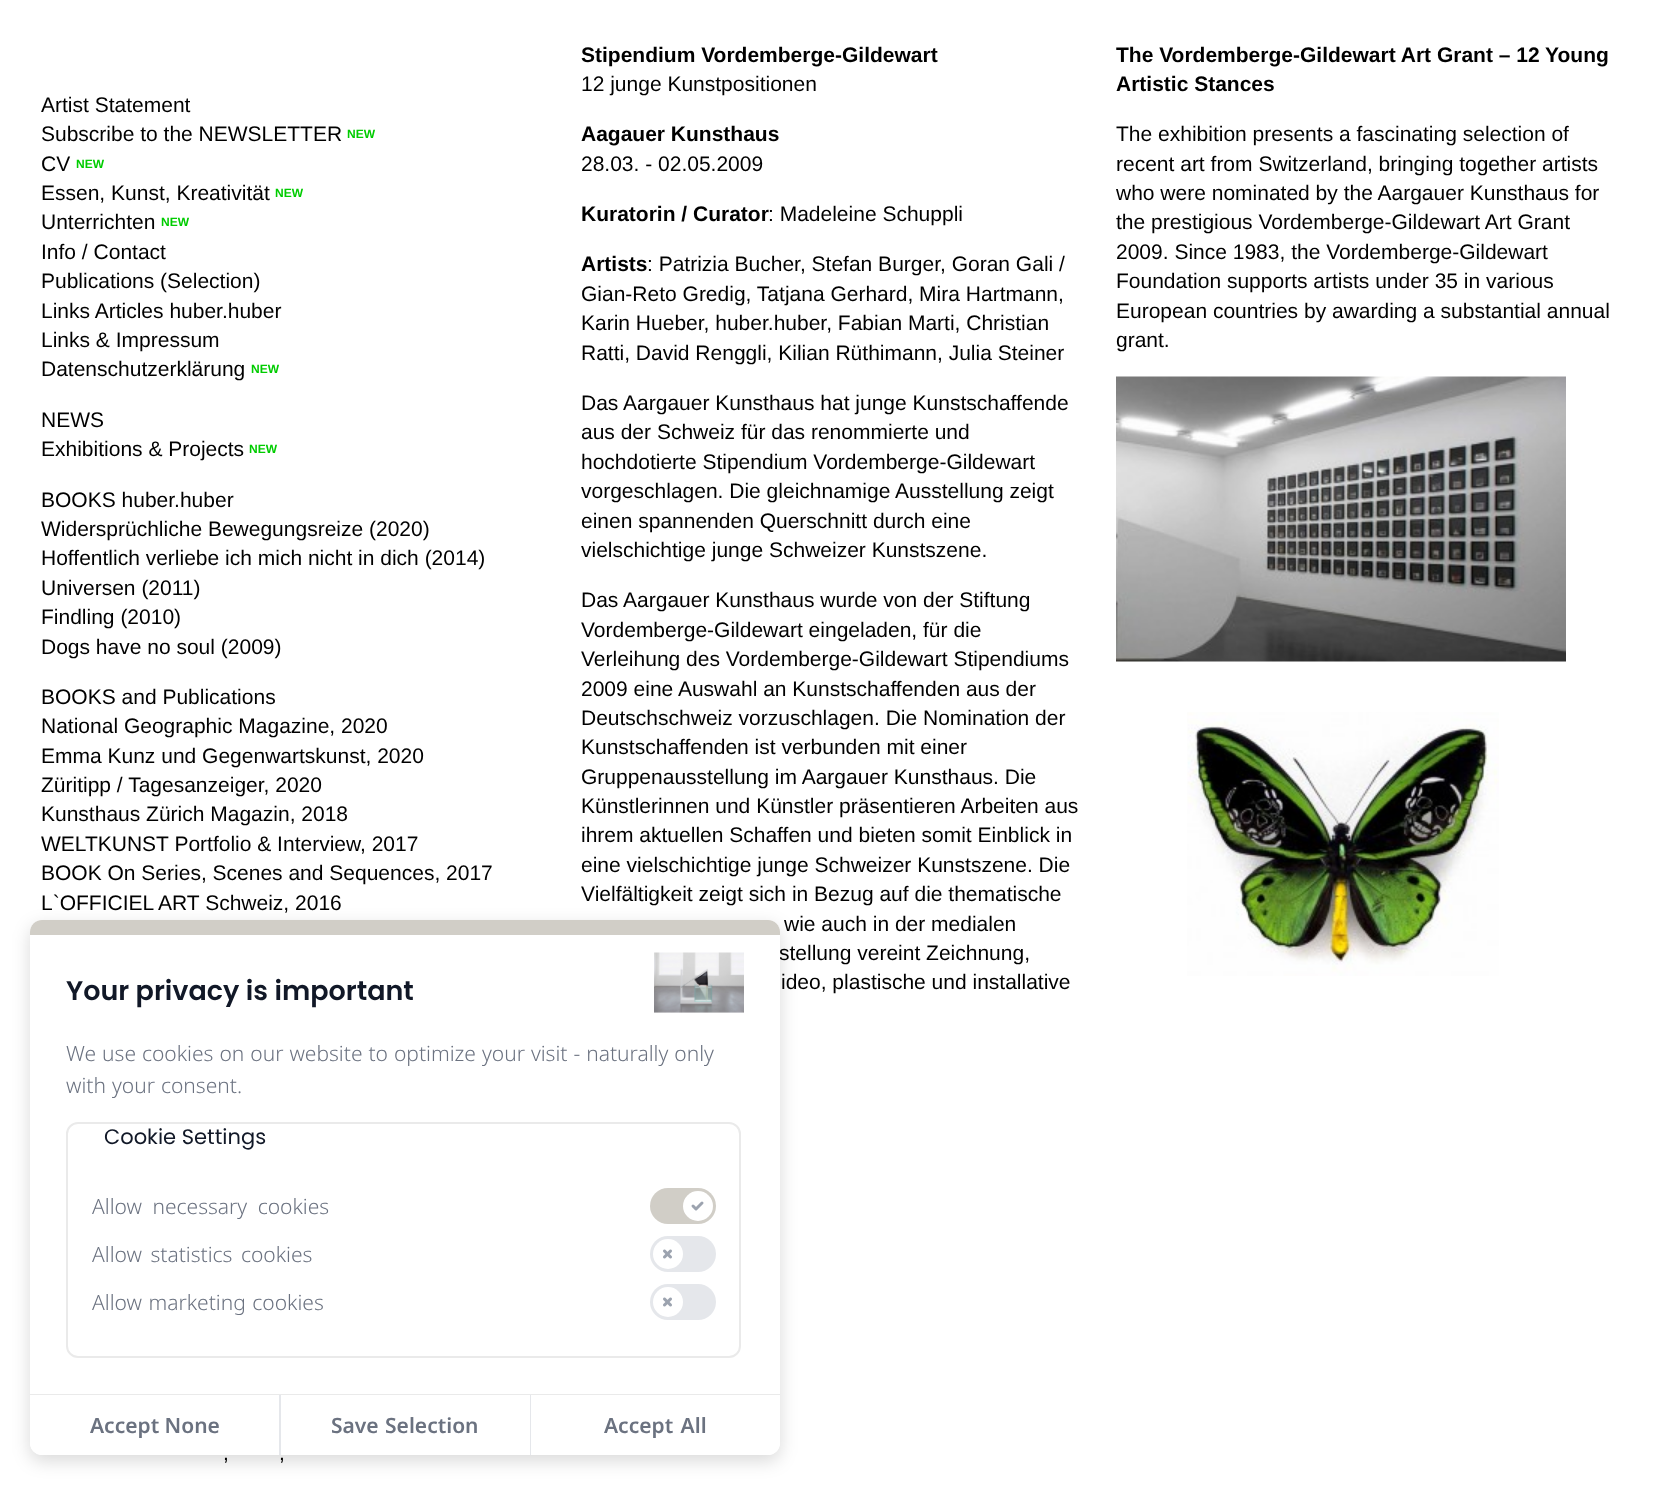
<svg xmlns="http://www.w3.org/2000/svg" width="1665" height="1485">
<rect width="100%" height="100%" fill="#fff"/>
<text x="41" y="112" style="font-family:Liberation Sans;font-size:21px;fill:#000">Artist Statement</text>
<text x="41" y="141" style="font-family:Liberation Sans;font-size:21px;fill:#000">Subscribe to the NEWSLETTER</text>
<text x="347" y="138" style="font-family:Liberation Sans;font-size:12px;font-weight:bold;fill:#0c0">NEW</text>
<text x="41" y="171" style="font-family:Liberation Sans;font-size:21px;fill:#000">CV</text>
<text x="76" y="168" style="font-family:Liberation Sans;font-size:12px;font-weight:bold;fill:#0c0">NEW</text>
<text x="41" y="200" style="font-family:Liberation Sans;font-size:21px;fill:#000">Essen, Kunst, Kreativität</text>
<text x="275" y="197" style="font-family:Liberation Sans;font-size:12px;font-weight:bold;fill:#0c0">NEW</text>
<text x="41" y="229" style="font-family:Liberation Sans;font-size:21px;fill:#000">Unterrichten</text>
<text x="161" y="226" style="font-family:Liberation Sans;font-size:12px;font-weight:bold;fill:#0c0">NEW</text>
<text x="41" y="259" style="font-family:Liberation Sans;font-size:21px;fill:#000">Info / Contact</text>
<text x="41" y="288" style="font-family:Liberation Sans;font-size:21px;fill:#000">Publications (Selection)</text>
<text x="41" y="318" style="font-family:Liberation Sans;font-size:21px;fill:#000">Links Articles huber.huber</text>
<text x="41" y="347" style="font-family:Liberation Sans;font-size:21px;fill:#000">Links &amp; Impressum</text>
<text x="41" y="376" style="font-family:Liberation Sans;font-size:21px;fill:#000">Datenschutzerklärung</text>
<text x="251" y="373" style="font-family:Liberation Sans;font-size:12px;font-weight:bold;fill:#0c0">NEW</text>
<text x="41" y="427" style="font-family:Liberation Sans;font-size:21px;fill:#000">NEWS</text>
<text x="41" y="456" style="font-family:Liberation Sans;font-size:21px;fill:#000">Exhibitions &amp; Projects</text>
<text x="249" y="453" style="font-family:Liberation Sans;font-size:12px;font-weight:bold;fill:#0c0">NEW</text>
<text x="41" y="507" style="font-family:Liberation Sans;font-size:21px;fill:#000">BOOKS huber.huber</text>
<text x="41" y="536" style="font-family:Liberation Sans;font-size:21px;fill:#000">Widersprüchliche Bewegungsreize (2020)</text>
<text x="41" y="565" style="font-family:Liberation Sans;font-size:21px;fill:#000">Hoffentlich verliebe ich mich nicht in dich (2014)</text>
<text x="41" y="595" style="font-family:Liberation Sans;font-size:21px;fill:#000">Universen (2011)</text>
<text x="41" y="624" style="font-family:Liberation Sans;font-size:21px;fill:#000">Findling (2010)</text>
<text x="41" y="654" style="font-family:Liberation Sans;font-size:21px;fill:#000">Dogs have no soul (2009)</text>
<text x="41" y="704" style="font-family:Liberation Sans;font-size:21px;fill:#000">BOOKS and Publications</text>
<text x="41" y="733" style="font-family:Liberation Sans;font-size:21px;fill:#000">National Geographic Magazine, 2020</text>
<text x="41" y="763" style="font-family:Liberation Sans;font-size:21px;fill:#000">Emma Kunz und Gegenwartskunst, 2020</text>
<text x="41" y="792" style="font-family:Liberation Sans;font-size:21px;fill:#000">Züritipp / Tagesanzeiger, 2020</text>
<text x="41" y="821" style="font-family:Liberation Sans;font-size:21px;fill:#000">Kunsthaus Zürich Magazin, 2018</text>
<text x="41" y="851" style="font-family:Liberation Sans;font-size:21px;fill:#000">WELTKUNST Portfolio &amp; Interview, 2017</text>
<text x="41" y="880" style="font-family:Liberation Sans;font-size:21px;fill:#000">BOOK On Series, Scenes and Sequences, 2017</text>
<text x="41" y="910" style="font-family:Liberation Sans;font-size:21px;fill:#000">L`OFFICIEL ART Schweiz, 2016</text>
<text x="223" y="1460" style="font-family:Liberation Sans;font-size:21px;fill:#000">,</text>
<text x="279" y="1460" style="font-family:Liberation Sans;font-size:21px;fill:#000">,</text>
<text x="581" y="62" style="font-family:Liberation Sans;font-size:21px;font-weight:bold;fill:#000">Stipendium Vordemberge-Gildewart</text>
<text x="581" y="91" style="font-family:Liberation Sans;font-size:21px;fill:#000">12 junge Kunstpositionen</text>
<text x="581" y="141" style="font-family:Liberation Sans;font-size:21px;font-weight:bold;fill:#000">Aagauer Kunsthaus</text>
<text x="581" y="171" style="font-family:Liberation Sans;font-size:21px;fill:#000">28.03. - 02.05.2009</text>
<text x="581" y="221" style="font-family:Liberation Sans;font-size:21px;font-weight:bold;fill:#000">Kuratorin / Curator</text>
<text x="768" y="221" style="font-family:Liberation Sans;font-size:21px;fill:#000">: Madeleine Schuppli</text>
<text x="581" y="271" style="font-family:Liberation Sans;font-size:21px;font-weight:bold;fill:#000">Artists</text>
<text x="647" y="271" style="font-family:Liberation Sans;font-size:21px;fill:#000">: Patrizia Bucher, Stefan Burger, Goran Gali /</text>
<text x="581" y="301" style="font-family:Liberation Sans;font-size:21px;fill:#000">Gian-Reto Gredig, Tatjana Gerhard, Mira Hartmann,</text>
<text x="581" y="330" style="font-family:Liberation Sans;font-size:21px;fill:#000">Karin Hueber, huber.huber, Fabian Marti, Christian</text>
<text x="581" y="360" style="font-family:Liberation Sans;font-size:21px;fill:#000">Ratti, David Renggli, Kilian Rüthimann, Julia Steiner</text>
<text x="581" y="410" style="font-family:Liberation Sans;font-size:21px;fill:#000">Das Aargauer Kunsthaus hat junge Kunstschaffende</text>
<text x="581" y="439" style="font-family:Liberation Sans;font-size:21px;fill:#000">aus der Schweiz für das renommierte und</text>
<text x="581" y="469" style="font-family:Liberation Sans;font-size:21px;fill:#000">hochdotierte Stipendium Vordemberge-Gildewart</text>
<text x="581" y="498" style="font-family:Liberation Sans;font-size:21px;fill:#000">vorgeschlagen. Die gleichnamige Ausstellung zeigt</text>
<text x="581" y="528" style="font-family:Liberation Sans;font-size:21px;fill:#000">einen spannenden Querschnitt durch eine</text>
<text x="581" y="557" style="font-family:Liberation Sans;font-size:21px;fill:#000">vielschichtige junge Schweizer Kunstszene.</text>
<text x="581" y="607" style="font-family:Liberation Sans;font-size:21px;fill:#000">Das Aargauer Kunsthaus wurde von der Stiftung</text>
<text x="581" y="637" style="font-family:Liberation Sans;font-size:21px;fill:#000">Vordemberge-Gildewart eingeladen, für die</text>
<text x="581" y="666" style="font-family:Liberation Sans;font-size:21px;fill:#000">Verleihung des Vordemberge-Gildewart Stipendiums</text>
<text x="581" y="696" style="font-family:Liberation Sans;font-size:21px;fill:#000">2009 eine Auswahl an Kunstschaffenden aus der</text>
<text x="581" y="725" style="font-family:Liberation Sans;font-size:21px;fill:#000">Deutschschweiz vorzuschlagen. Die Nomination der</text>
<text x="581" y="754" style="font-family:Liberation Sans;font-size:21px;fill:#000">Kunstschaffenden ist verbunden mit einer</text>
<text x="581" y="784" style="font-family:Liberation Sans;font-size:21px;fill:#000">Gruppenausstellung im Aargauer Kunsthaus. Die</text>
<text x="581" y="813" style="font-family:Liberation Sans;font-size:21px;fill:#000">Künstlerinnen und Künstler präsentieren Arbeiten aus</text>
<text x="581" y="842" style="font-family:Liberation Sans;font-size:21px;fill:#000">ihrem aktuellen Schaffen und bieten somit Einblick in</text>
<text x="581" y="872" style="font-family:Liberation Sans;font-size:21px;fill:#000">eine vielschichtige junge Schweizer Kunstszene. Die</text>
<text x="581" y="901" style="font-family:Liberation Sans;font-size:21px;fill:#000">Vielfältigkeit zeigt sich in Bezug auf die thematische</text>
<text x="784" y="931" style="font-family:Liberation Sans;font-size:21px;fill:#000">wie auch in der medialen</text>
<text x="779" y="960" style="font-family:Liberation Sans;font-size:21px;fill:#000">stellung vereint Zeichnung,</text>
<text x="781" y="989" style="font-family:Liberation Sans;font-size:21px;fill:#000">ideo, plastische und installative</text>
<text x="1116" y="62" style="font-family:Liberation Sans;font-size:21px;font-weight:bold;fill:#000">The Vordemberge-Gildewart Art Grant – 12 Young</text>
<text x="1116" y="91" style="font-family:Liberation Sans;font-size:21px;font-weight:bold;fill:#000">Artistic Stances</text>
<text x="1116" y="141" style="font-family:Liberation Sans;font-size:21px;fill:#000">The exhibition presents a fascinating selection of</text>
<text x="1116" y="171" style="font-family:Liberation Sans;font-size:21px;fill:#000">recent art from Switzerland, bringing together artists</text>
<text x="1116" y="200" style="font-family:Liberation Sans;font-size:21px;fill:#000">who were nominated by the Aargauer Kunsthaus for</text>
<text x="1116" y="229" style="font-family:Liberation Sans;font-size:21px;fill:#000">the prestigious Vordemberge-Gildewart Art Grant</text>
<text x="1116" y="259" style="font-family:Liberation Sans;font-size:21px;fill:#000">2009. Since 1983, the Vordemberge-Gildewart</text>
<text x="1116" y="288" style="font-family:Liberation Sans;font-size:21px;fill:#000">Foundation supports artists under 35 in various</text>
<text x="1116" y="318" style="font-family:Liberation Sans;font-size:21px;fill:#000">European countries by awarding a substantial annual</text>
<text x="1116" y="347" style="font-family:Liberation Sans;font-size:21px;fill:#000">grant.</text>
<image x="1116" y="376" width="450" height="286" href="media/1.png"/>
<image x="1187" y="712" width="312" height="264" href="media/2.png"/>
<rect x="30" y="926" width="750" height="535" rx="12" fill="#00000026" filter="blur(9px)"/>
<rect x="30" y="920" width="750" height="535" rx="12" fill="#fff"/>
<path d="M42 920h726c6.5 0 12 5.5 12 12v3h-750v-3c0-6.5 5.5-12 12-12z" fill="#d1cec7"/>
<text x="66" y="1000" style="font-family:Poppins;font-size:27px;font-weight:600;fill:#111827">Your privacy is important</text>
<image x="654" y="952" width="90" height="61" href="media/3.png"/>
<text x="66" y="1061" word-spacing="0.5" style="font-family:Noto Sans;font-size:21px;font-weight:300;fill:#6b7280">We use cookies on our website to optimize your visit - naturally only</text>
<text x="66" y="1093" word-spacing="0.5" style="font-family:Noto Sans;font-size:21px;font-weight:300;fill:#6b7280">with your consent.</text>
<rect x="67" y="1123" width="673" height="234" rx="11" fill="none" stroke="#eaeaea" stroke-width="2"/>
<text x="104" y="1144" style="font-family:Poppins;font-size:21px;fill:#111827">Cookie Settings</text>
<text x="92" y="1214" word-spacing="5" style="font-family:Noto Sans;font-size:21px;font-weight:300;fill:#6b7280">Allow necessary cookies</text>
<rect x="650" y="1188" width="66" height="36" rx="18" fill="#d1cec7"/>
<circle cx="698" cy="1206" r="15" fill="#fff"/>
<path d="M702 1203l-6 6l-3-3" fill="none" stroke="#9ca3af" stroke-width="3" stroke-linecap="round" stroke-linejoin="round"/>
<text x="92" y="1262" word-spacing="3" style="font-family:Noto Sans;font-size:21px;font-weight:300;fill:#6b7280">Allow statistics cookies</text>
<rect x="650" y="1236" width="66" height="36" rx="18" fill="#e5e7eb"/>
<circle cx="668" cy="1254" r="15" fill="#fff"/>
<image x="663" y="1249" width="9" height="10" href="media/4.png"/>
<text x="92" y="1310" word-spacing="1" style="font-family:Noto Sans;font-size:21px;font-weight:300;fill:#6b7280">Allow marketing cookies</text>
<rect x="650" y="1284" width="66" height="36" rx="18" fill="#e5e7eb"/>
<circle cx="668" cy="1302" r="15" fill="#fff"/>
<image x="663" y="1297" width="9" height="10" href="media/4.png"/>
<rect x="30" y="1394" width="750" height="1" fill="#eaeaea"/>
<path d="M30 1395h249v60h-237c-6.5 0-12-5.5-12-12z" fill="#fff"/>
<text x="90" y="1433" style="font-family:Noto Sans;font-size:21px;font-weight:600;fill:#6b7280">Accept None</text>
<rect x="530" y="1395" width="1" height="60" fill="#e5e7eb"/>
<rect x="279" y="1395" width="2" height="60" fill="#e5e7eb"/>
<text x="331" y="1433" word-spacing="1" style="font-family:Noto Sans;font-size:21px;font-weight:600;fill:#6b7280">Save Selection</text>
<path d="M531 1395h249v48c0 6.5-5.5 12-12 12h-237z" fill="#fff"/>
<text x="604" y="1433" word-spacing="2" style="font-family:Noto Sans;font-size:21px;font-weight:600;fill:#6b7280">Accept All</text>
</svg>
